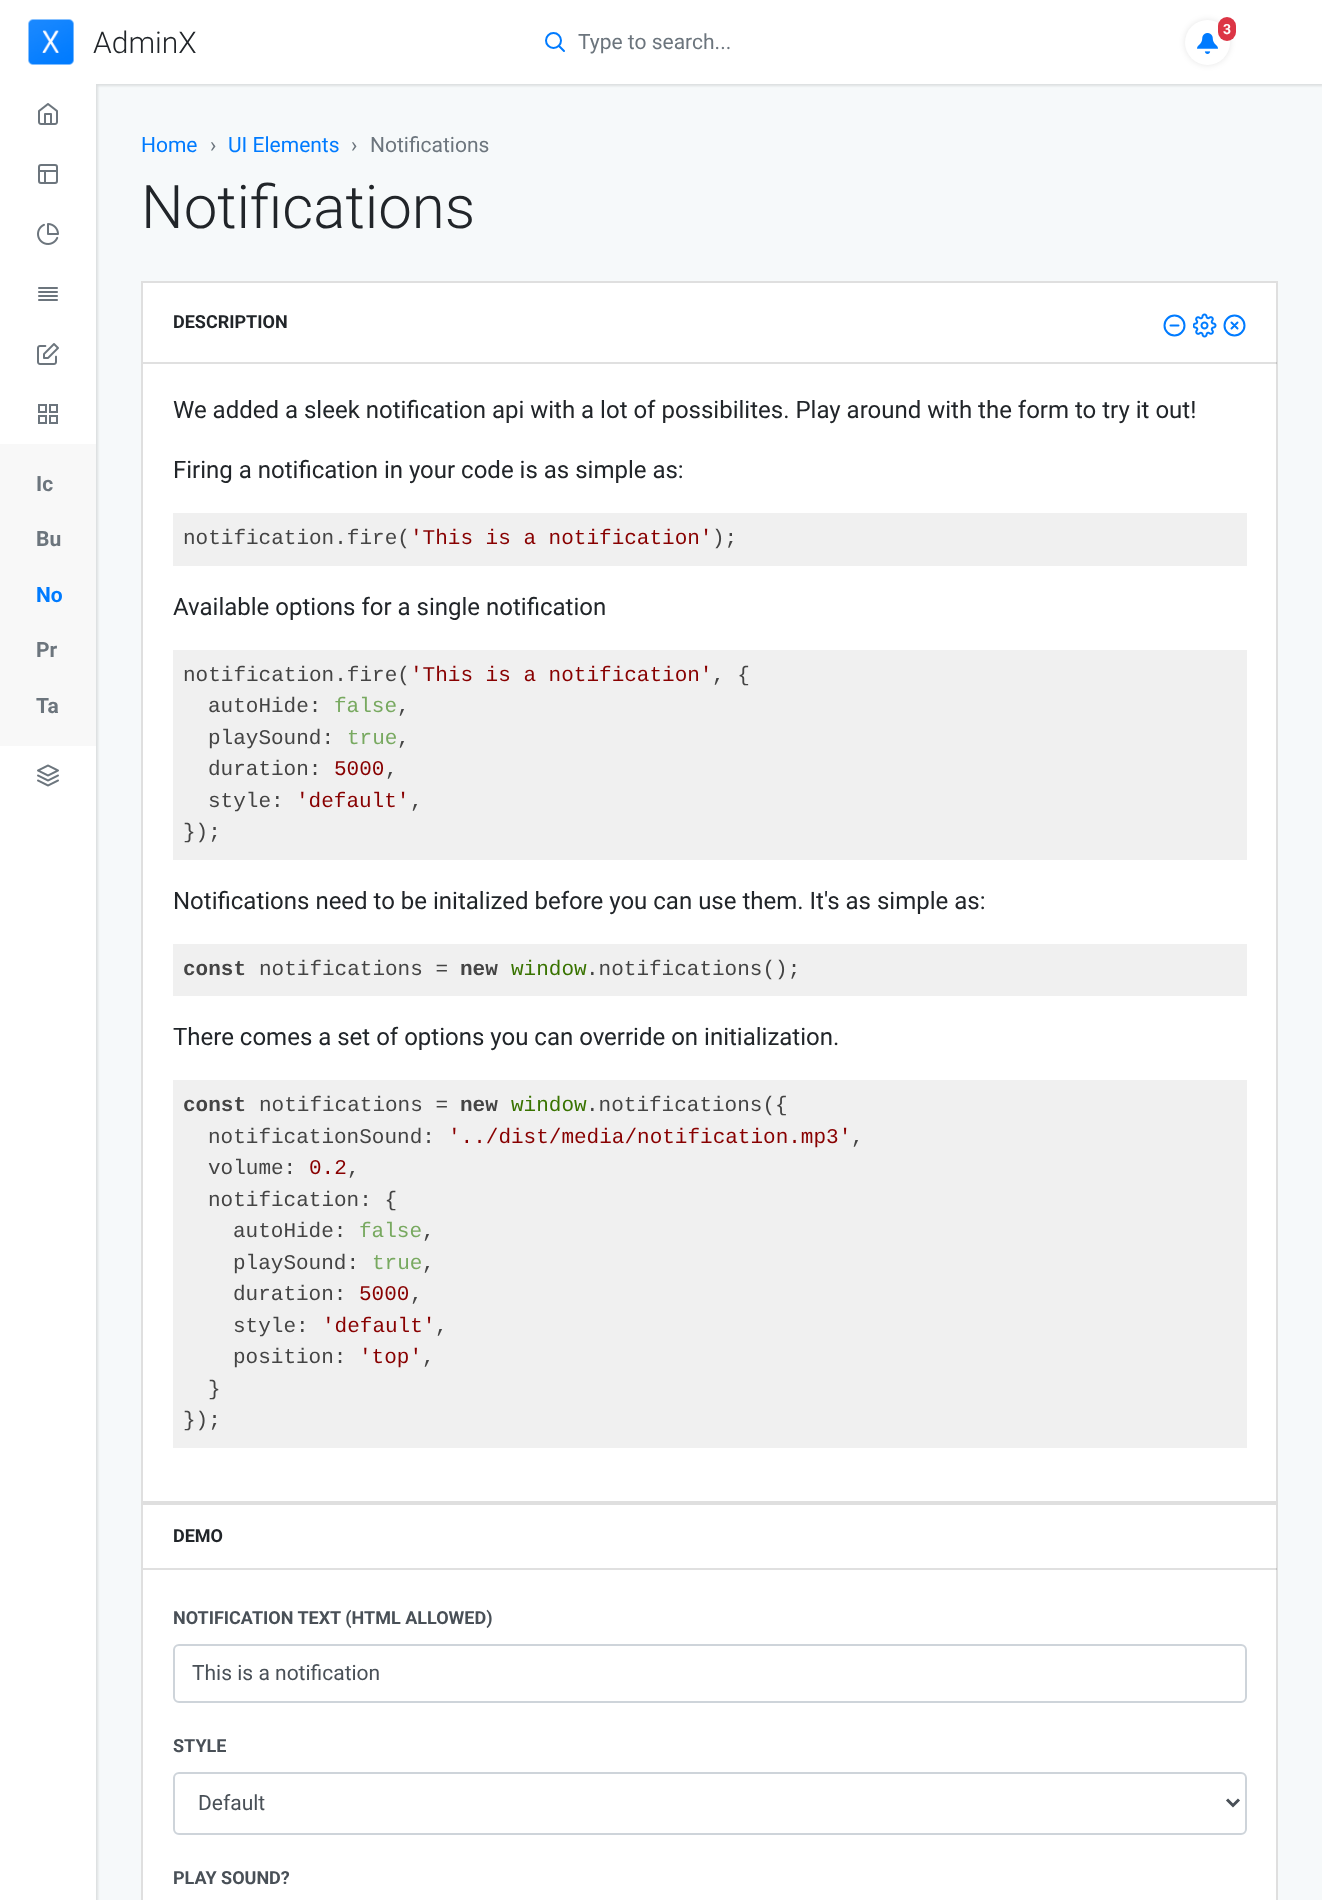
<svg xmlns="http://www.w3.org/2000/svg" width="1322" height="1900">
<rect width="100%" height="100%" fill="#f6f9fa"/>
<rect y="2" width="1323" height="84" fill="#0000001a" filter="blur(1px)"/>
<rect width="1322" height="84" fill="#fff"/>
<image x="28" y="19" width="46" height="46" href="media/1.png"/>
<text x="93" y="53" style="font-family:Roboto;font-size:30px;font-weight:300;fill:#212529">AdminX</text>
<circle cx="553.5" cy="40.5" r="7.5" fill="none" stroke="#007bff" stroke-width="2"/>
<path d="M564 51l-5-5" fill="none" stroke="#007bff" stroke-width="2" stroke-linecap="round" stroke-linejoin="round"/>
<text x="578" y="49" style="font-family:Roboto;font-size:21px;fill:#6c757d">Type to search...</text>
<rect x="1185" y="20" width="45" height="45" rx="22.5" fill="#0000001a" filter="blur(3px)"/>
<circle cx="1207.5" cy="42.5" r="22.5" fill="#fff"/>
<rect x="1218" y="17" width="18" height="24" rx="9" fill="#dc3545"/>
<text x="1223" y="34" style="font-family:Roboto;font-size:14px;font-weight:bold;fill:#fff">3</text>
<image x="1197" y="33" width="21" height="21" href="media/2.png"/>
<rect x="2" y="86" width="96" height="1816" fill="#0000001a" filter="blur(1px)"/>
<rect y="84" width="96" height="1816" fill="#fff"/>
<image x="38" y="103" width="20" height="22" href="media/3.png"/>
<rect x="39" y="165" width="18" height="18" rx="2" fill="none" stroke="#6c757d" stroke-width="2"/>
<path d="M39 171h18m-12 12v-12" fill="none" stroke="#6c757d" stroke-width="2" stroke-linecap="round" stroke-linejoin="round"/>
<image x="37" y="223" width="22" height="22" href="media/4.png"/>
<image x="38" y="287" width="20" height="14" href="media/5.png"/>
<image x="37" y="343" width="22" height="22" href="media/6.png"/>
<rect x="39" y="405" width="7" height="7" fill="none" stroke="#6c757d" stroke-width="2"/>
<rect x="50" y="405" width="7" height="7" fill="none" stroke="#6c757d" stroke-width="2"/>
<rect x="50" y="416" width="7" height="7" fill="none" stroke="#6c757d" stroke-width="2"/>
<rect x="39" y="416" width="7" height="7" fill="none" stroke="#6c757d" stroke-width="2"/>
<rect y="444" width="96" height="302" fill="#f8f8f8"/>
<text x="36" y="491" style="font-family:Roboto;font-size:21px;font-weight:bold;fill:#6c757d">Ic</text>
<text x="36" y="546" style="font-family:Roboto;font-size:21px;font-weight:bold;fill:#6c757d">Bu</text>
<text x="36" y="602" style="font-family:Roboto;font-size:21px;font-weight:bold;fill:#007bff">No</text>
<text x="36" y="657" style="font-family:Roboto;font-size:21px;font-weight:bold;fill:#6c757d">Pr</text>
<text x="36" y="713" style="font-family:Roboto;font-size:21px;font-weight:bold;fill:#6c757d">Ta</text>
<image x="37" y="764" width="22" height="23" href="media/7.png"/>
<text x="141" y="152" style="font-family:Roboto;font-size:21px;fill:#007bff">Home</text>
<text x="210" y="152" style="font-family:Roboto;font-size:21px;fill:#6c757d">›</text>
<text x="228" y="152" style="font-family:Roboto;font-size:21px;fill:#007bff">UI Elements</text>
<text x="351" y="152" style="font-family:Roboto;font-size:21px;fill:#6c757d">›</text>
<text x="370" y="152" style="font-family:Roboto;font-size:21px;fill:#6c757d">Notifications</text>
<text x="141" y="228" style="font-family:Roboto;font-size:60px;font-weight:300;fill:#212529">Notifications</text>
<rect x="142" y="282" width="1135" height="1220" fill="#fff" stroke="#dfdfdf" stroke-width="2"/>
<rect x="143" y="362" width="1134" height="2" fill="#0000001f"/>
<text x="173" y="328" style="font-family:Roboto;font-size:18px;font-weight:bold;fill:#212529">DESCRIPTION</text>
<circle cx="1174.5" cy="325.5" r="10" fill="none" stroke="#007bff" stroke-width="2"/>
<path d="M1170.5 325.5h8" fill="none" stroke="#007bff" stroke-width="2" stroke-linecap="round" stroke-linejoin="round"/>
<image x="1193" y="313" width="24" height="25" href="media/8.png"/>
<circle cx="1234.5" cy="325.5" r="10" fill="none" stroke="#007bff" stroke-width="2"/>
<path d="M1237.5 322.5l-6 6m0-6l6 6" fill="none" stroke="#007bff" stroke-width="2" stroke-linecap="round" stroke-linejoin="round"/>
<text x="173" y="418" style="font-family:Roboto;font-size:24px;fill:#212529">We added a sleek notification api with a lot of possibilites. Play around with the form to try it out!</text>
<text x="173" y="478" style="font-family:Roboto;font-size:24px;fill:#212529">Firing a notification in your code is as simple as:</text>
<rect x="173" y="513" width="1074" height="53" fill="#f0f0f0"/>
<text x="183" y="544" style="font-family:Liberation Mono;font-size:21px;fill:#444">notification.fire(</text>
<text x="410" y="544" style="font-family:Liberation Mono;font-size:21px;fill:#800">'This is a notification'</text>
<text x="712" y="544" style="font-family:Liberation Mono;font-size:21px;fill:#444">);</text>
<text x="173" y="615" style="font-family:Roboto;font-size:24px;fill:#212529">Available options for a single notification</text>
<rect x="173" y="650" width="1074" height="210" fill="#f0f0f0"/>
<text x="183" y="681" style="font-family:Liberation Mono;font-size:21px;fill:#444">notification.fire(</text>
<text x="410" y="681" style="font-family:Liberation Mono;font-size:21px;fill:#800">'This is a notification'</text>
<text x="712" y="681" style="font-family:Liberation Mono;font-size:21px;fill:#444">, {</text>
<text x="208" y="712" style="font-family:Liberation Mono;font-size:21px;fill:#444">autoHide:</text>
<text x="334" y="712" style="font-family:Liberation Mono;font-size:21px;fill:#78a960">false</text>
<text x="397" y="712" style="font-family:Liberation Mono;font-size:21px;fill:#444">,</text>
<text x="208" y="744" style="font-family:Liberation Mono;font-size:21px;fill:#444">playSound:</text>
<text x="347" y="744" style="font-family:Liberation Mono;font-size:21px;fill:#78a960">true</text>
<text x="397" y="744" style="font-family:Liberation Mono;font-size:21px;fill:#444">,</text>
<text x="208" y="775" style="font-family:Liberation Mono;font-size:21px;fill:#444">duration:</text>
<text x="334" y="775" style="font-family:Liberation Mono;font-size:21px;fill:#800">5000</text>
<text x="385" y="775" style="font-family:Liberation Mono;font-size:21px;fill:#444">,</text>
<text x="208" y="807" style="font-family:Liberation Mono;font-size:21px;fill:#444">style:</text>
<text x="296" y="807" style="font-family:Liberation Mono;font-size:21px;fill:#800">'default'</text>
<text x="410" y="807" style="font-family:Liberation Mono;font-size:21px;fill:#444">,</text>
<text x="183" y="838" style="font-family:Liberation Mono;font-size:21px;fill:#444">});</text>
<text x="173" y="909" style="font-family:Roboto;font-size:24px;fill:#212529">Notifications need to be initalized before you can use them. It's as simple as:</text>
<rect x="173" y="944" width="1074" height="52" fill="#f0f0f0"/>
<text x="183" y="975" style="font-family:Liberation Mono;font-size:21px;font-weight:bold;fill:#444">const</text>
<text x="259" y="975" style="font-family:Liberation Mono;font-size:21px;fill:#444">notifications =</text>
<text x="460" y="975" style="font-family:Liberation Mono;font-size:21px;font-weight:bold;fill:#444">new</text>
<text x="511" y="975" style="font-family:Liberation Mono;font-size:21px;fill:#397300">window</text>
<text x="586" y="975" style="font-family:Liberation Mono;font-size:21px;fill:#444">.notifications();</text>
<text x="173" y="1045" style="font-family:Roboto;font-size:24px;fill:#212529">There comes a set of options you can override on initialization.</text>
<rect x="173" y="1080" width="1074" height="368" fill="#f0f0f0"/>
<text x="183" y="1111" style="font-family:Liberation Mono;font-size:21px;font-weight:bold;fill:#444">const</text>
<text x="259" y="1111" style="font-family:Liberation Mono;font-size:21px;fill:#444">notifications =</text>
<text x="460" y="1111" style="font-family:Liberation Mono;font-size:21px;font-weight:bold;fill:#444">new</text>
<text x="511" y="1111" style="font-family:Liberation Mono;font-size:21px;fill:#397300">window</text>
<text x="586" y="1111" style="font-family:Liberation Mono;font-size:21px;fill:#444">.notifications({</text>
<text x="208" y="1143" style="font-family:Liberation Mono;font-size:21px;fill:#444">notificationSound:</text>
<text x="448" y="1143" style="font-family:Liberation Mono;font-size:21px;fill:#800">'../dist/media/notification.mp3'</text>
<text x="851" y="1143" style="font-family:Liberation Mono;font-size:21px;fill:#444">,</text>
<text x="208" y="1174" style="font-family:Liberation Mono;font-size:21px;fill:#444">volume:</text>
<text x="309" y="1174" style="font-family:Liberation Mono;font-size:21px;fill:#800">0.2</text>
<text x="347" y="1174" style="font-family:Liberation Mono;font-size:21px;fill:#444">,</text>
<text x="208" y="1206" style="font-family:Liberation Mono;font-size:21px;fill:#444">notification: {</text>
<text x="233" y="1237" style="font-family:Liberation Mono;font-size:21px;fill:#444">autoHide:</text>
<text x="359" y="1237" style="font-family:Liberation Mono;font-size:21px;fill:#78a960">false</text>
<text x="422" y="1237" style="font-family:Liberation Mono;font-size:21px;fill:#444">,</text>
<text x="233" y="1269" style="font-family:Liberation Mono;font-size:21px;fill:#444">playSound:</text>
<text x="372" y="1269" style="font-family:Liberation Mono;font-size:21px;fill:#78a960">true</text>
<text x="422" y="1269" style="font-family:Liberation Mono;font-size:21px;fill:#444">,</text>
<text x="233" y="1300" style="font-family:Liberation Mono;font-size:21px;fill:#444">duration:</text>
<text x="359" y="1300" style="font-family:Liberation Mono;font-size:21px;fill:#800">5000</text>
<text x="410" y="1300" style="font-family:Liberation Mono;font-size:21px;fill:#444">,</text>
<text x="233" y="1332" style="font-family:Liberation Mono;font-size:21px;fill:#444">style:</text>
<text x="322" y="1332" style="font-family:Liberation Mono;font-size:21px;fill:#800">'default'</text>
<text x="435" y="1332" style="font-family:Liberation Mono;font-size:21px;fill:#444">,</text>
<text x="233" y="1363" style="font-family:Liberation Mono;font-size:21px;fill:#444">position:</text>
<text x="359" y="1363" style="font-family:Liberation Mono;font-size:21px;fill:#800">'top'</text>
<text x="422" y="1363" style="font-family:Liberation Mono;font-size:21px;fill:#444">,</text>
<text x="208" y="1395" style="font-family:Liberation Mono;font-size:21px;fill:#444">}</text>
<text x="183" y="1426" style="font-family:Liberation Mono;font-size:21px;fill:#444">});</text>
<rect x="142" y="1504" width="1135" height="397" fill="#fff" stroke="#dfdfdf" stroke-width="2"/>
<rect x="143" y="1568" width="1134" height="2" fill="#0000001f"/>
<text x="173" y="1542" style="font-family:Roboto;font-size:18px;font-weight:bold;fill:#212529">DEMO</text>
<text x="173" y="1624" style="font-family:Roboto;font-size:18px;font-weight:bold;fill:#495057">NOTIFICATION TEXT (HTML ALLOWED)</text>
<rect x="174" y="1645" width="1072" height="57" rx="5" fill="none" stroke="#ced4da" stroke-width="2"/>
<text x="192" y="1680" style="font-family:Roboto;font-size:21px;fill:#495057">This is a notification</text>
<text x="173" y="1752" style="font-family:Roboto;font-size:18px;font-weight:bold;fill:#495057">STYLE</text>
<rect x="174" y="1773" width="1072" height="61" rx="5" fill="none" stroke="#ced4da" stroke-width="2"/>
<path d="M1227 1799.5l6 6l6-6" fill="none" stroke="#495057" stroke-width="3"/>
<text x="198" y="1810" style="font-family:Roboto;font-size:21px;fill:#495057">Default</text>
<text x="173" y="1884" style="font-family:Roboto;font-size:18px;font-weight:bold;fill:#495057">PLAY SOUND?</text>
</svg>
